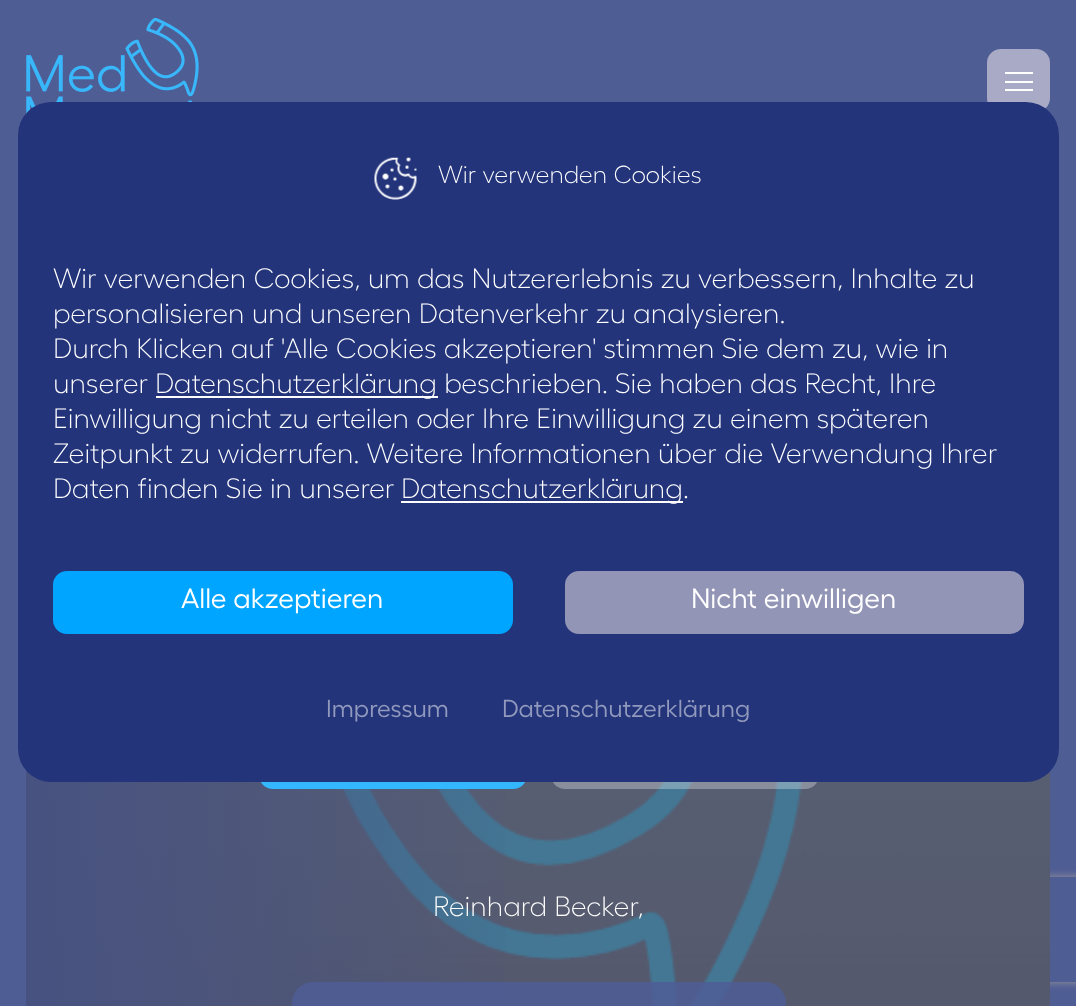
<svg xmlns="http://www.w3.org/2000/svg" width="1076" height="1006">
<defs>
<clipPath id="clip1"><path d="M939 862h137v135h-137zm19 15h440c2 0 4 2 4 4v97c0 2-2 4-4 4h-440c-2 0-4-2-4-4v-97c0-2 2-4 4-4z" clip-rule="evenodd"/></clipPath>
<linearGradient id="g1" gradientUnits="userSpaceOnUse" x1="26" y1="720" x2="539" y2="720"><stop offset="0" stop-color="#475281"/><stop offset="1" stop-color="#475281" stop-opacity="0"/></linearGradient>
</defs>
<rect width="100%" height="100%" fill="#4f5d95"/>
<image x="26" y="18" width="173" height="96" href="media/2.png"/>
<rect x="988" y="50" width="61" height="61" rx="13" fill="#a9aac5" stroke="#a9aac5" stroke-width="2"/>
<g clip-path="url(#clip1)">
<rect x="954" y="877" width="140" height="105" rx="4" fill="#999" filter="blur(4.5px)"/>
</g>
<image x="29" y="771" width="1021" height="235" href="media/3.png"/>
<rect x="29" y="771" width="1021" height="235" fill="#4f4c4d99"/>
<rect x="26" y="770" width="480" height="236" fill="url(#g1)"/>
<rect x="259" y="733" width="268" height="56" rx="14" fill="#33b7ff"/>
<rect x="551" y="733" width="268" height="56" rx="14" fill="#ffffff4d"/>
<rect x="18" y="102" width="1041" height="680" rx="33" fill="#23347b"/>
<image x="374" y="157" width="43" height="43" href="media/1.png"/>
<text x="438" y="183" style="font-family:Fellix;font-size:24.5px;font-weight:300;fill:#fff">Wir verwenden Cookies</text>
<text x="53" y="288" style="font-family:Fellix;font-size:28px;font-weight:300;fill:#fff">Wir verwenden Cookies, um das Nutzererlebnis zu verbessern, Inhalte zu</text>
<text x="53" y="323" style="font-family:Fellix;font-size:28px;font-weight:300;fill:#fff">personalisieren und unseren Datenverkehr zu analysieren.</text>
<text x="53" y="358" style="font-family:Fellix;font-size:28px;font-weight:300;fill:#fff">Durch Klicken auf 'Alle Cookies akzeptieren' stimmen Sie dem zu, wie in</text>
<text x="53" y="393" style="font-family:Fellix;font-size:28px;font-weight:300;fill:#fff">unserer</text>
<rect x="156" y="396" width="282" height="2" fill="#fff"/>
<text x="155" y="393" style="font-family:Fellix;font-size:28px;font-weight:300;fill:#fff">Datenschutzerklärung beschrieben. Sie haben das Recht, Ihre</text>
<text x="53" y="428" style="font-family:Fellix;font-size:28px;font-weight:300;fill:#fff">Einwilligung nicht zu erteilen oder Ihre Einwilligung zu einem späteren</text>
<text x="53" y="463" style="font-family:Fellix;font-size:28px;font-weight:300;fill:#fff">Zeitpunkt zu widerrufen. Weitere Informationen über die Verwendung Ihrer</text>
<text x="53" y="498" style="font-family:Fellix;font-size:28px;font-weight:300;fill:#fff">Daten finden Sie in unserer</text>
<rect x="401" y="501" width="282" height="2" fill="#fff"/>
<text x="401" y="498" style="font-family:Fellix;font-size:28px;font-weight:300;fill:#fff">Datenschutzerklärung.</text>
<rect x="54" y="572" width="458" height="61" rx="13" fill="#00a5ff" stroke="#00a5ff" stroke-width="2"/>
<text x="181" y="608" style="font-family:Fellix;font-size:28px;fill:#fff">Alle akzeptieren</text>
<rect x="566" y="572" width="457" height="61" rx="13" fill="#9395b7" stroke="#9395b7" stroke-width="2"/>
<text x="691" y="608" style="font-family:Fellix;font-size:28px;fill:#fff">Nicht einwilligen</text>
<text x="326" y="717" style="font-family:Fellix;font-size:24.5px;fill:#919abd">Impressum</text>
<text x="502" y="717" style="font-family:Fellix;font-size:24.5px;fill:#919abd">Datenschutzerklärung</text>
<rect x="1005" y="72" width="28" height="2" fill="#fff"/>
<rect x="1005" y="81" width="28" height="2" fill="#fff"/>
<rect x="1005" y="89" width="28" height="2" fill="#fff"/>
<text x="433" y="916" style="font-family:Fellix;font-size:28px;font-weight:300;fill:#fff">Reinhard Becker,</text>
<rect x="292" y="982" width="494" height="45" rx="21" fill="#4f5d97d9"/>
</svg>
